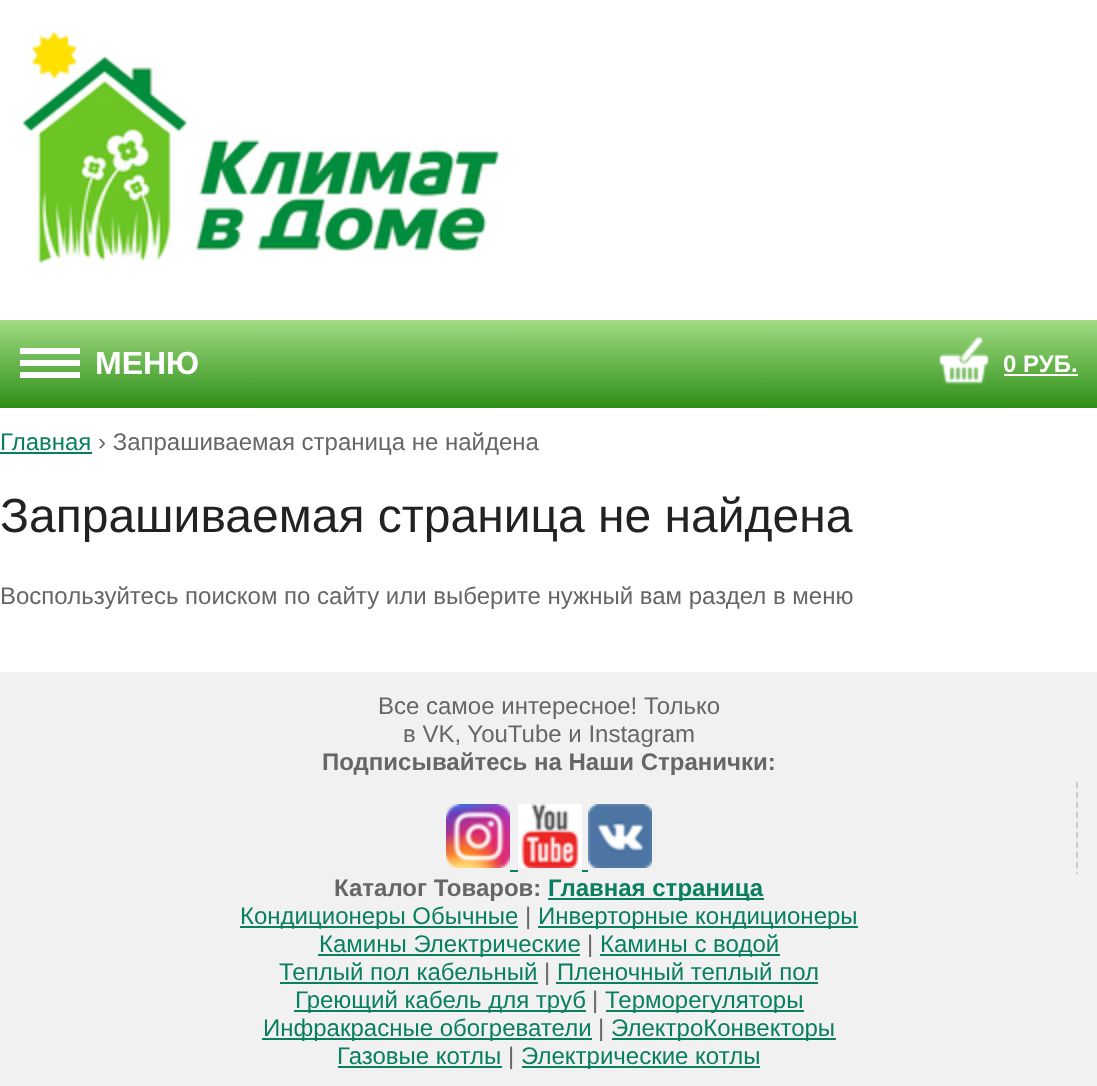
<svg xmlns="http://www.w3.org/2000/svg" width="1097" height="1086">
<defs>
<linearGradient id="g1" gradientUnits="userSpaceOnUse" x1="549" y1="320" x2="549" y2="408"><stop offset="0" stop-color="#a1db83"/><stop offset="1" stop-color="#2e8f17"/></linearGradient>
</defs>
<rect width="100%" height="100%" fill="#fff"/>
<image x="21" y="31" width="479" height="232" href="media/1.png"/>
<rect y="320" width="1097" height="88" fill="url(#g1)"/>
<rect x="20" y="360" width="60" height="6" fill="#fff"/>
<rect x="20" y="348" width="60" height="6" fill="#fff"/>
<rect x="20" y="372" width="60" height="6" fill="#fff"/>
<text x="95" y="374" style="font-family:Liberation Sans;font-size:32px;font-weight:bold;fill:#fff">МЕНЮ</text>
<image x="939" y="335" width="50" height="50" href="media/2.png"/>
<text x="1003" y="372" style="font-family:Liberation Sans;font-size:24px;font-weight:bold;fill:#fff">0 РУБ.</text>
<rect x="1004" y="374" width="74" height="2" fill="#fff"/>
<text x="0" y="450" style="font-family:Liberation Sans;font-size:24px;fill:#087f5e">Главная</text>
<rect y="452" width="92" height="2" fill="#087f5e"/>
<text x="98" y="450" style="font-family:Liberation Sans;font-size:24px;fill:#666">› Запрашиваемая страница не найдена</text>
<text x="0" y="532" style="font-family:Liberation Sans;font-size:48px;fill:#222">Запрашиваемая страница не найдена</text>
<text x="0" y="604" style="font-family:Liberation Sans;font-size:24px;fill:#666">Воспользуйтесь поиском по сайту или выберите нужный вам раздел в меню</text>
<rect y="672" width="1097" height="414" fill="#f1f1f1"/>
<image x="1076" y="782" width="2" height="92" href="media/3.png"/>
<text x="378" y="714" style="font-family:Liberation Sans;font-size:24px;fill:#666">Все самое интересное! Только</text>
<text x="403" y="742" style="font-family:Liberation Sans;font-size:24px;fill:#666">в VK, YouTube и Instagram</text>
<text x="322" y="770" style="font-family:Liberation Sans;font-size:24px;font-weight:bold;fill:#666">Подписывайтесь на Наши Странички:</text>
<image x="446" y="804" width="64" height="64" href="media/4.png"/>
<image x="518" y="804" width="64" height="64" href="media/5.png"/>
<image x="588" y="804" width="64" height="64" href="media/6.png"/>
<rect x="510" y="870" width="8" height="2" fill="#087f5e"/>
<rect x="582" y="870" width="6" height="2" fill="#087f5e"/>
<text x="334" y="896" style="font-family:Liberation Sans;font-size:24px;font-weight:bold;fill:#666">Каталог Товаров:</text>
<rect x="548" y="898" width="216" height="2" fill="#087f5e"/>
<text x="548" y="896" style="font-family:Liberation Sans;font-size:24px;font-weight:bold;fill:#087f5e">Главная страница</text>
<rect x="240" y="926" width="278" height="2" fill="#087f5e"/>
<text x="240" y="924" style="font-family:Liberation Sans;font-size:24px;fill:#087f5e">Кондиционеры Обычные</text>
<text x="525" y="924" style="font-family:Liberation Sans;font-size:24px;fill:#666">|</text>
<rect x="538" y="926" width="320" height="2" fill="#087f5e"/>
<text x="538" y="924" style="font-family:Liberation Sans;font-size:24px;fill:#087f5e">Инверторные кондиционеры</text>
<rect x="318" y="954" width="262" height="2" fill="#087f5e"/>
<text x="319" y="952" style="font-family:Liberation Sans;font-size:24px;fill:#087f5e">Камины Электрические</text>
<text x="587" y="952" style="font-family:Liberation Sans;font-size:24px;fill:#666">|</text>
<rect x="600" y="954" width="180" height="2" fill="#087f5e"/>
<text x="600" y="952" style="font-family:Liberation Sans;font-size:24px;fill:#087f5e">Камины с водой</text>
<text x="279" y="980" style="font-family:Liberation Sans;font-size:24px;fill:#087f5e">Теплый пол кабельный</text>
<rect x="280" y="982" width="258" height="2" fill="#087f5e"/>
<text x="544" y="980" style="font-family:Liberation Sans;font-size:24px;fill:#666">|</text>
<text x="557" y="980" style="font-family:Liberation Sans;font-size:24px;fill:#087f5e">Пленочный теплый пол</text>
<rect x="556" y="982" width="262" height="2" fill="#087f5e"/>
<rect x="294" y="1010" width="292" height="2" fill="#087f5e"/>
<text x="295" y="1008" style="font-family:Liberation Sans;font-size:24px;fill:#087f5e">Греющий кабель для труб</text>
<text x="592" y="1008" style="font-family:Liberation Sans;font-size:24px;fill:#666">|</text>
<rect x="606" y="1010" width="198" height="2" fill="#087f5e"/>
<text x="605" y="1008" style="font-family:Liberation Sans;font-size:24px;fill:#087f5e">Терморегуляторы</text>
<rect x="262" y="1038" width="330" height="2" fill="#087f5e"/>
<text x="263" y="1036" style="font-family:Liberation Sans;font-size:24px;fill:#087f5e">Инфракрасные обогреватели</text>
<text x="598" y="1036" style="font-family:Liberation Sans;font-size:24px;fill:#666">|</text>
<rect x="612" y="1038" width="224" height="2" fill="#087f5e"/>
<text x="611" y="1036" style="font-family:Liberation Sans;font-size:24px;fill:#087f5e">ЭлектроКонвекторы</text>
<text x="337" y="1064" style="font-family:Liberation Sans;font-size:24px;fill:#087f5e">Газовые котлы</text>
<rect x="338" y="1066" width="164" height="2" fill="#087f5e"/>
<text x="508" y="1064" style="font-family:Liberation Sans;font-size:24px;fill:#666">|</text>
<rect x="522" y="1066" width="238" height="2" fill="#087f5e"/>
<text x="521" y="1064" style="font-family:Liberation Sans;font-size:24px;fill:#087f5e">Электрические котлы</text>
</svg>
